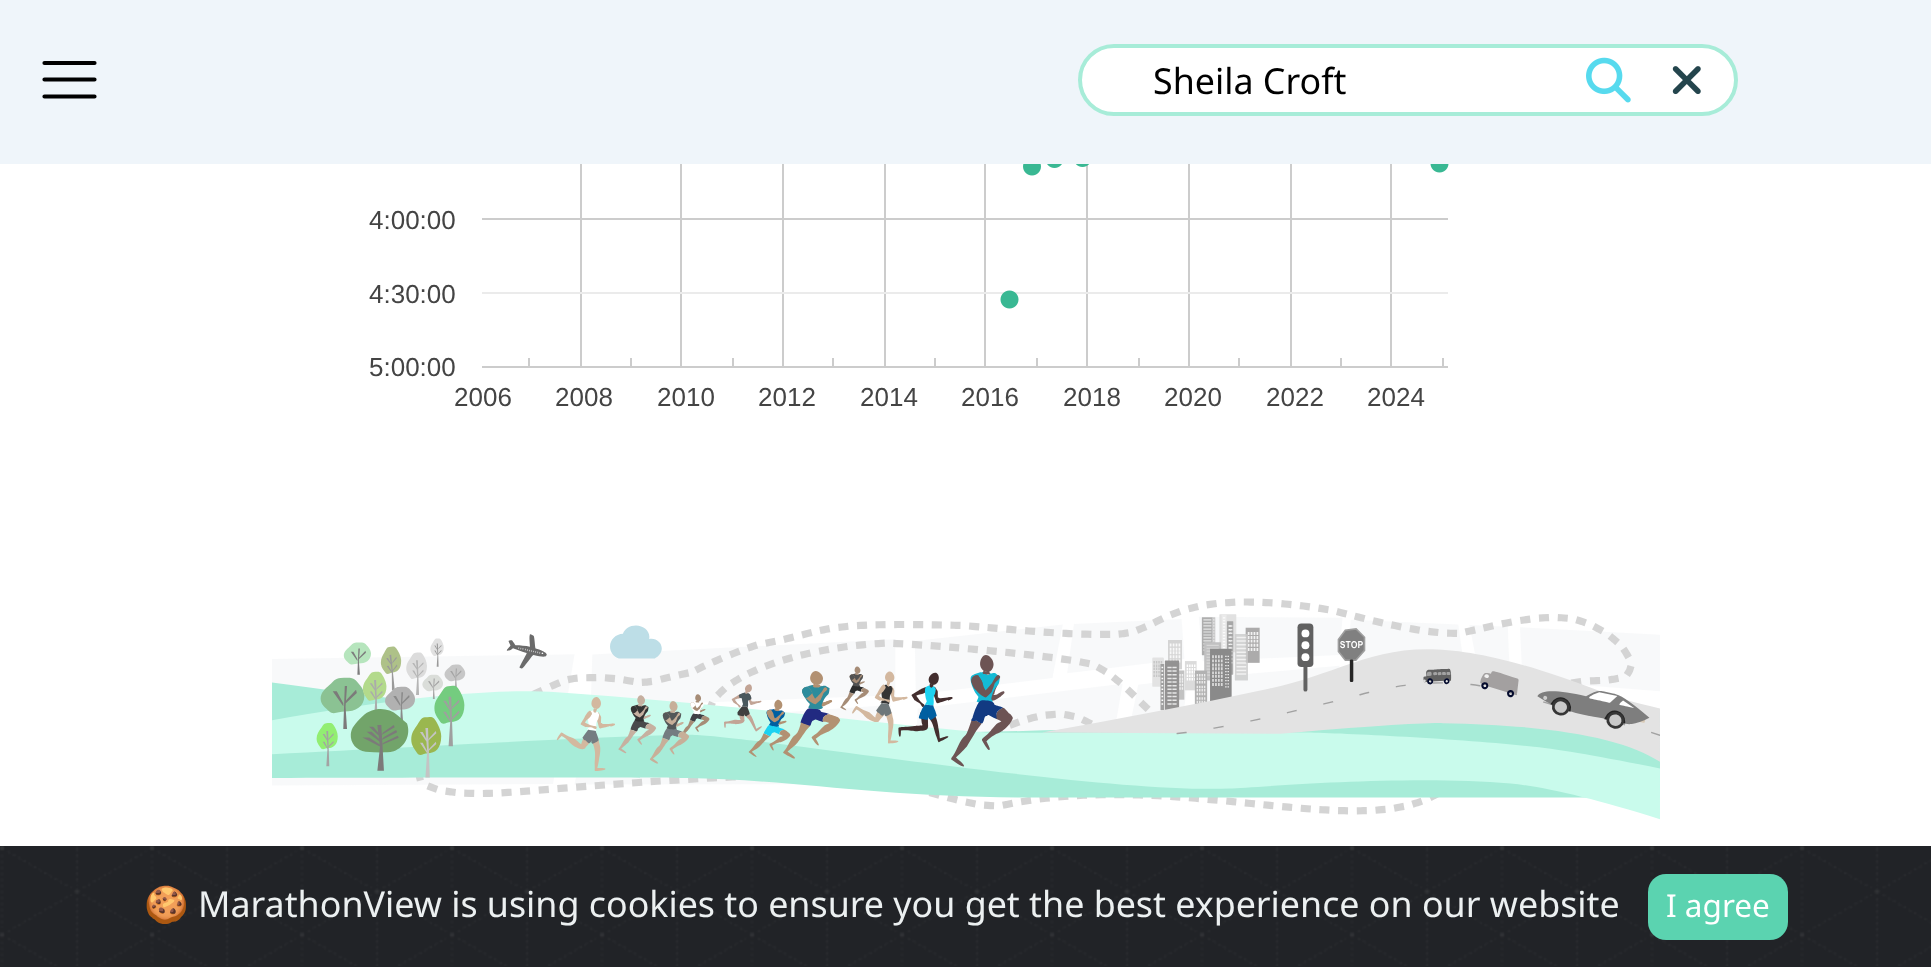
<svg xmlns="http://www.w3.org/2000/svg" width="1931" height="967">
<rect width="100%" height="100%" fill="#fff"/>
<rect width="1931" height="164" fill="#eff5fa"/>
<path d="M44.5 63h50m-50 16.5h50m-50 17h50" fill="none" stroke="#000" stroke-width="4.2" stroke-linecap="round"/>
<rect x="1080" y="46" width="656" height="68" rx="34" fill="#fff" stroke="#a7ecd8" stroke-width="4"/>
<text x="1153" y="94" style="font-family:Noto Sans;font-size:35.8px;fill:#000">Sheila Croft</text>
<image x="1586" y="57" width="45" height="46" href="media/1.png"/>
<image x="1672" y="66" width="29" height="29" href="media/2.png"/>
<text x="369" y="229" style="font-family:Liberation Sans;font-size:26px;fill:#444">4:00:00</text>
<image x="482" y="164" width="967" height="204" href="media/3.png"/>
<text x="369" y="303" style="font-family:Liberation Sans;font-size:26px;fill:#444">4:30:00</text>
<text x="369" y="376" style="font-family:Liberation Sans;font-size:26px;fill:#444">5:00:00</text>
<text x="454" y="406" style="font-family:Liberation Sans;font-size:26px;fill:#444">2006</text>
<text x="555" y="406" style="font-family:Liberation Sans;font-size:26px;fill:#444">2008</text>
<text x="657" y="406" style="font-family:Liberation Sans;font-size:26px;fill:#444">2010</text>
<text x="758" y="406" style="font-family:Liberation Sans;font-size:26px;fill:#444">2012</text>
<text x="860" y="406" style="font-family:Liberation Sans;font-size:26px;fill:#444">2014</text>
<text x="961" y="406" style="font-family:Liberation Sans;font-size:26px;fill:#444">2016</text>
<text x="1063" y="406" style="font-family:Liberation Sans;font-size:26px;fill:#444">2018</text>
<text x="1164" y="406" style="font-family:Liberation Sans;font-size:26px;fill:#444">2020</text>
<text x="1266" y="406" style="font-family:Liberation Sans;font-size:26px;fill:#444">2022</text>
<text x="1367" y="406" style="font-family:Liberation Sans;font-size:26px;fill:#444">2024</text>
<image x="272" y="598" width="1388" height="222" href="media/4.png"/>
<rect y="966" width="1931" height="1" fill="#212327"/>
<image x="0" y="846" width="1931" height="120" href="media/5.png"/>
<text x="144" y="917" style="font-family:Noto Color Emoji;font-size:35.8px;fill:#ecf0f1">🍪</text>
<text x="198" y="917" style="font-family:Noto Sans;font-size:35.8px;fill:#ecf0f1">MarathonView is using cookies to ensure you get the best experience on our website</text>
<rect x="1648" y="874" width="140" height="66" rx="18" fill="#5bd3b0"/>
<text x="1666" y="917" style="font-family:Noto Sans;font-size:31.5px;fill:#fff">I agree</text>
</svg>
